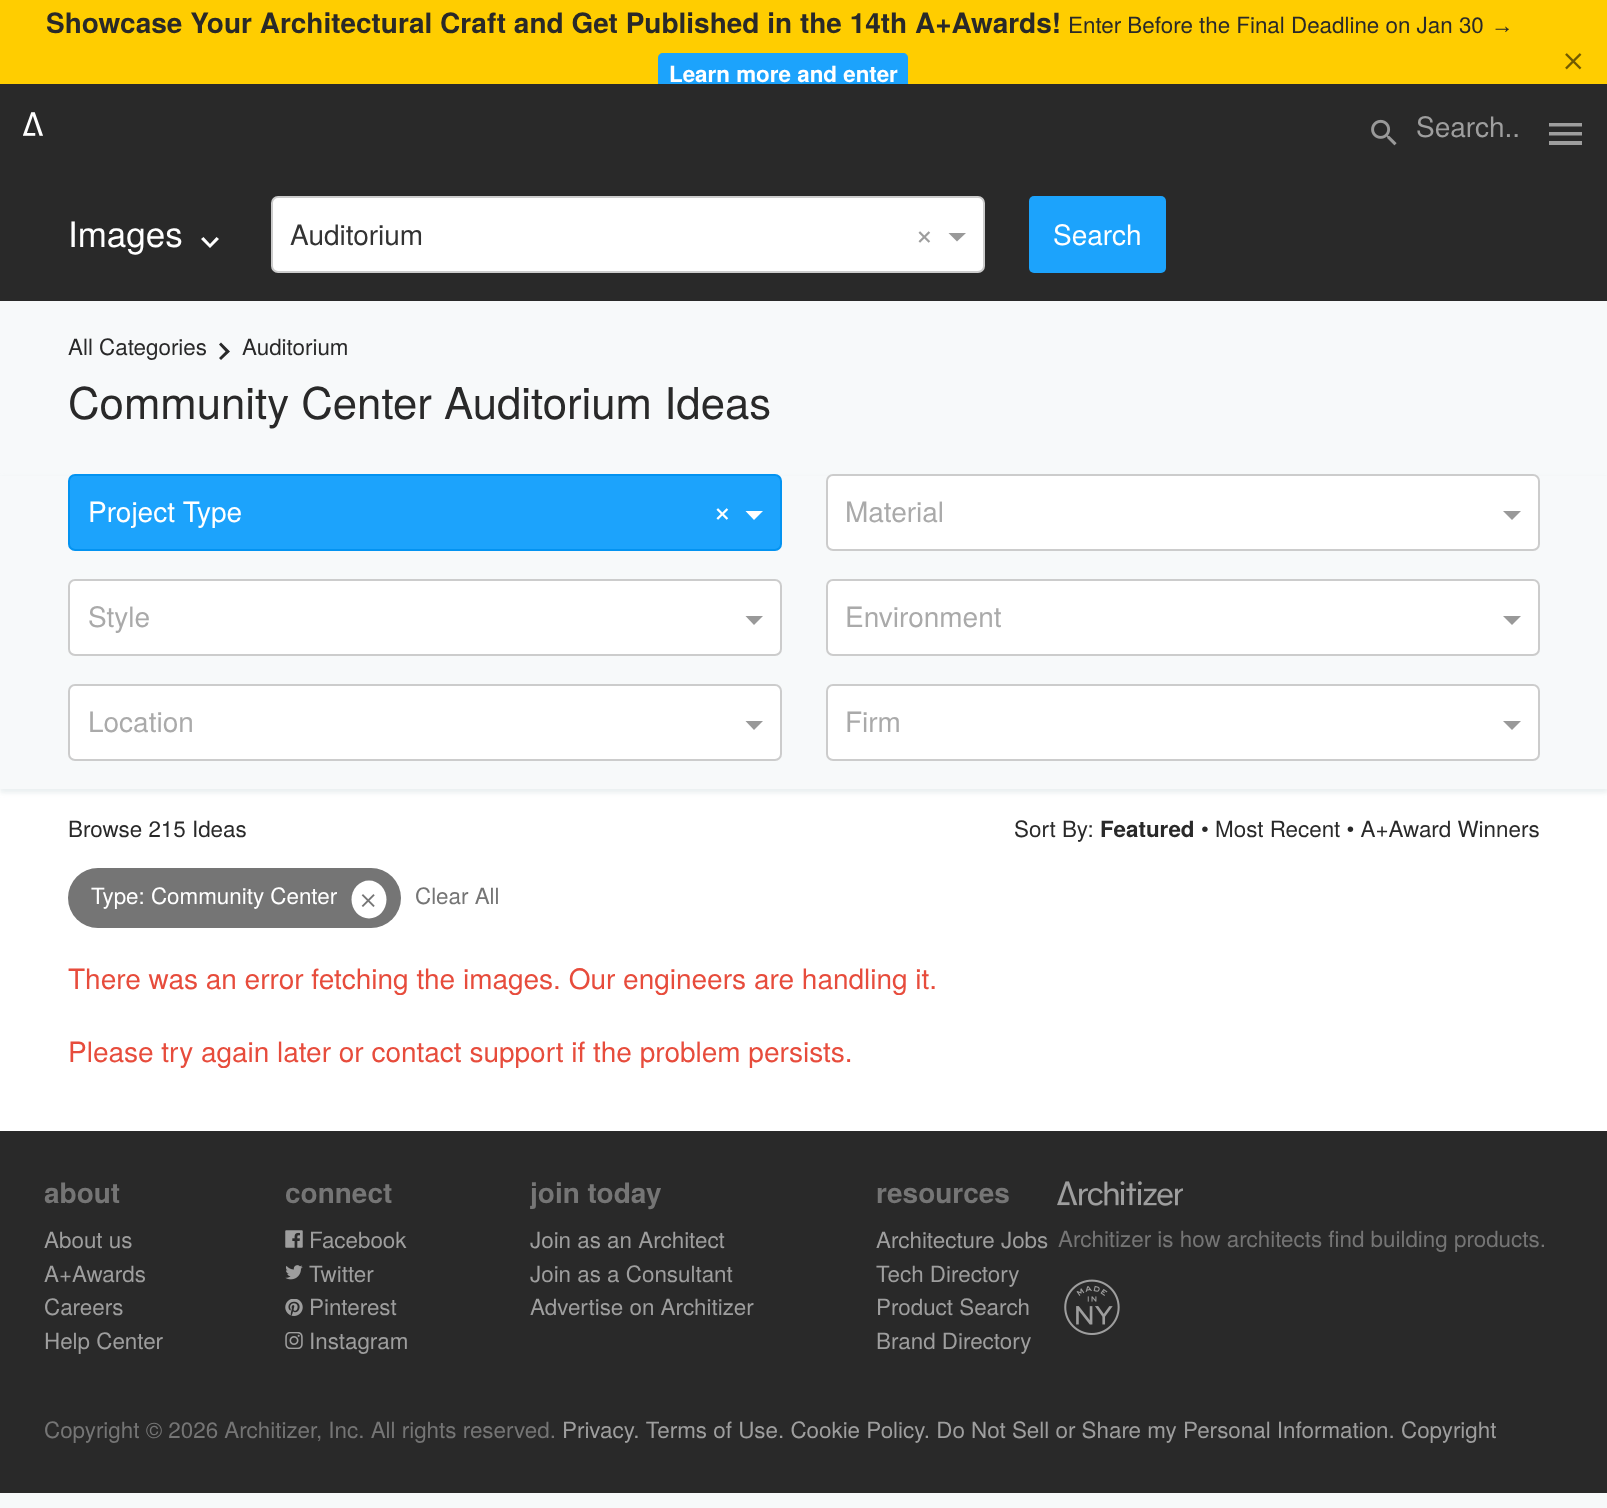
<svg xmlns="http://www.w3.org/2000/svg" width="1607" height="1508">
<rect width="100%" height="100%" fill="#f7f9fa"/>
<rect width="1607" height="84" fill="#ffcd00"/>
<text x="46" y="33" style="font-family:TeX Gyre Heros;font-size:28px;font-weight:bold;fill:#292929">Showcase Your Architectural Craft and Get Published in the 14th A+Awards!</text>
<text x="1068" y="33" style="font-family:TeX Gyre Heros;font-size:22.4px;fill:#292929">Enter Before the Final Deadline on Jan 30</text>
<text x="1491" y="33" style="font-family:Liberation Sans;font-size:22.4px;fill:#292929">→</text>
<path d="M663 53h240c3 0 5 2 5 5v26h-250v-26c0-3 2-5 5-5z" fill="#1ca3fc"/>
<text x="669" y="82" style="font-family:TeX Gyre Heros;font-size:22.4px;font-weight:bold;fill:#fff">Learn more and enter</text>
<image x="1565" y="53" width="17" height="17" href="media/1.png"/>
<rect y="84" width="1607" height="217" fill="#292929"/>
<image x="23" y="112" width="20" height="24" href="media/2.png"/>
<image x="1371" y="119" width="26" height="27" href="media/3.png"/>
<text x="1416" y="137" style="font-family:TeX Gyre Heros;font-size:28px;fill:#9e9e9e">Search..</text>
<path d="M1549 123h33v3.5h-33zm0 12.5v-3.5h33v3.5zm0 9.5v-4h33v4z" fill="#9e9e9e"/>
<rect y="789" width="1607" height="342" fill="#fff"/>
<text x="68" y="247" style="font-family:TeX Gyre Heros;font-size:35px;fill:#fff">Images</text>
<path d="M203.5 237l6.5 7l6.5-7l2.5 2l-9 9l-9-9z" fill="#fff"/>
<rect x="272" y="197" width="712" height="75" rx="6" fill="#fff" stroke="#ccc" stroke-width="2"/>
<text x="290" y="245" style="font-family:TeX Gyre Heros;font-size:28px;fill:#333">Auditorium</text>
<text x="915" y="245" style="font-family:TeX Gyre Heros;font-size:32px;fill:#9e9e9e">×</text>
<path d="M948.5 233h17.5l-9 8.5z" fill="#999"/>
<rect x="1029" y="196" width="137" height="77" rx="5" fill="#1ca3fc"/>
<text x="1053" y="245" style="font-family:TeX Gyre Heros;font-size:28px;fill:#fff">Search</text>
<text x="68" y="355" style="font-family:TeX Gyre Heros;font-size:22.4px;fill:#292929">All Categories</text>
<path d="M219 358l6.5-6.5l-6.5-7l2-2l9 9l-9 8.5z" fill="#292929"/>
<text x="242" y="355" style="font-family:TeX Gyre Heros;font-size:22.4px;fill:#292929">Auditorium</text>
<text x="68" y="419" style="font-family:TeX Gyre Heros;font-size:43.75px;fill:#292929">Community Center Auditorium Ideas</text>
<rect y="478" width="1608" height="315" fill="#e7edefd9" filter="blur(2px)"/>
<rect y="476" width="1607" height="313" fill="#f7f9fa"/>
<rect x="69" y="475" width="712" height="75" rx="6" fill="#1ca3fc" stroke="#0393f1" stroke-width="2"/>
<text x="88" y="522" style="font-family:TeX Gyre Heros;font-size:28px;fill:#fff">Project Type</text>
<text x="713" y="522" style="font-family:TeX Gyre Heros;font-size:32px;fill:#fff">×</text>
<path d="M745.5 511h17.5l-9 9z" fill="#fff"/>
<rect x="827" y="475" width="712" height="75" rx="6" fill="#fff" stroke="#ccc" stroke-width="2"/>
<text x="845" y="522" style="font-family:TeX Gyre Heros;font-size:28px;fill:#aaa">Material</text>
<path d="M1503 511h18l-9 9z" fill="#999"/>
<rect x="69" y="580" width="712" height="75" rx="6" fill="#fff" stroke="#ccc" stroke-width="2"/>
<text x="88" y="627" style="font-family:TeX Gyre Heros;font-size:28px;fill:#aaa">Style</text>
<path d="M745.5 616h17.5l-9 9z" fill="#999"/>
<rect x="827" y="580" width="712" height="75" rx="6" fill="#fff" stroke="#ccc" stroke-width="2"/>
<text x="845" y="627" style="font-family:TeX Gyre Heros;font-size:28px;fill:#aaa">Environment</text>
<path d="M1503 616h18l-9 9z" fill="#999"/>
<rect x="69" y="685" width="712" height="75" rx="6" fill="#fff" stroke="#ccc" stroke-width="2"/>
<text x="88" y="732" style="font-family:TeX Gyre Heros;font-size:28px;fill:#aaa">Location</text>
<path d="M745.5 721h17.5l-9 9z" fill="#999"/>
<rect x="827" y="685" width="712" height="75" rx="6" fill="#fff" stroke="#ccc" stroke-width="2"/>
<text x="845" y="732" style="font-family:TeX Gyre Heros;font-size:28px;fill:#aaa">Firm</text>
<path d="M1503 721h18l-9 9z" fill="#999"/>
<text x="68" y="837" style="font-family:TeX Gyre Heros;font-size:22.4px;fill:#292929">Browse 215 Ideas</text>
<text x="1014" y="837" style="font-family:TeX Gyre Heros;font-size:22.4px;fill:#292929">Sort By:</text>
<text x="1100" y="837" style="font-family:TeX Gyre Heros;font-size:22.4px;font-weight:bold;fill:#292929">Featured</text>
<text x="1201" y="837" style="font-family:TeX Gyre Heros;font-size:22.4px;fill:#292929">• Most Recent • A+Award Winners</text>
<rect x="68" y="868" width="333" height="60" rx="30" fill="#757575"/>
<text x="91" y="904" style="font-family:TeX Gyre Heros;font-size:22.4px;fill:#fff">Type: Community Center</text>
<ellipse cx="369" cy="899.5" rx="17.5" ry="19" fill="#fff"/>
<image x="361" y="894" width="14" height="13" href="media/4.png"/>
<text x="415" y="904" style="font-family:TeX Gyre Heros;font-size:22.4px;fill:#757575">Clear All</text>
<text x="68" y="989" style="font-family:TeX Gyre Heros;font-size:28px;fill:#e74c3c">There was an error fetching the images. Our engineers are handling it.</text>
<text x="68" y="1062" style="font-family:TeX Gyre Heros;font-size:28px;fill:#e74c3c">Please try again later or contact support if the problem persists.</text>
<rect y="1131" width="1607" height="362" fill="#292929"/>
<text x="44" y="1203" style="font-family:TeX Gyre Heros;font-size:28px;font-weight:bold;fill:#757575">about</text>
<text x="44" y="1248" style="font-family:TeX Gyre Heros;font-size:22.4px;fill:#9e9e9e">About us</text>
<text x="44" y="1282" style="font-family:TeX Gyre Heros;font-size:22.4px;fill:#9e9e9e">A+Awards</text>
<text x="44" y="1315" style="font-family:TeX Gyre Heros;font-size:22.4px;fill:#9e9e9e">Careers</text>
<text x="44" y="1349" style="font-family:TeX Gyre Heros;font-size:22.4px;fill:#9e9e9e">Help Center</text>
<text x="285" y="1203" style="font-family:TeX Gyre Heros;font-size:28px;font-weight:bold;fill:#757575">connect</text>
<image x="285" y="1230" width="18" height="18" href="media/5.png"/>
<text x="309" y="1248" style="font-family:TeX Gyre Heros;font-size:22.4px;fill:#9e9e9e">Facebook</text>
<image x="285" y="1265" width="18" height="15" href="media/6.png"/>
<text x="309" y="1282" style="font-family:TeX Gyre Heros;font-size:22.4px;fill:#9e9e9e">Twitter</text>
<image x="285" y="1299" width="18" height="17" href="media/7.png"/>
<text x="309" y="1315" style="font-family:TeX Gyre Heros;font-size:22.4px;fill:#9e9e9e">Pinterest</text>
<image x="285" y="1332" width="18" height="17" href="media/8.png"/>
<text x="309" y="1349" style="font-family:TeX Gyre Heros;font-size:22.4px;fill:#9e9e9e">Instagram</text>
<text x="530" y="1203" style="font-family:TeX Gyre Heros;font-size:28px;font-weight:bold;fill:#757575">join today</text>
<text x="530" y="1248" style="font-family:TeX Gyre Heros;font-size:22.4px;fill:#9e9e9e">Join as an Architect</text>
<text x="530" y="1282" style="font-family:TeX Gyre Heros;font-size:22.4px;fill:#9e9e9e">Join as a Consultant</text>
<text x="530" y="1315" style="font-family:TeX Gyre Heros;font-size:22.4px;fill:#9e9e9e">Advertise on Architizer</text>
<text x="876" y="1203" style="font-family:TeX Gyre Heros;font-size:28px;font-weight:bold;fill:#757575">resources</text>
<text x="876" y="1248" style="font-family:TeX Gyre Heros;font-size:22.4px;fill:#9e9e9e">Architecture Jobs</text>
<text x="876" y="1282" style="font-family:TeX Gyre Heros;font-size:22.4px;fill:#9e9e9e">Tech Directory</text>
<text x="876" y="1315" style="font-family:TeX Gyre Heros;font-size:22.4px;fill:#9e9e9e">Product Search</text>
<text x="876" y="1349" style="font-family:TeX Gyre Heros;font-size:22.4px;fill:#9e9e9e">Brand Directory</text>
<image x="1057" y="1181" width="126" height="25" href="media/9.png"/>
<text x="1058" y="1247" style="font-family:TeX Gyre Heros;font-size:22.4px;fill:#757575">Architizer is how architects find building products.</text>
<image x="1064" y="1279" width="56" height="56" href="media/10.png"/>
<text x="44" y="1438" style="font-family:TeX Gyre Heros;font-size:22.4px;fill:#757575">Copyright © 2026 Architizer, Inc. All rights reserved.</text>
<text x="562" y="1438" style="font-family:TeX Gyre Heros;font-size:22.4px;fill:#9e9e9e">Privacy. Terms of Use. Cookie Policy. Do Not Sell or Share my Personal Information. Copyright</text>
</svg>
